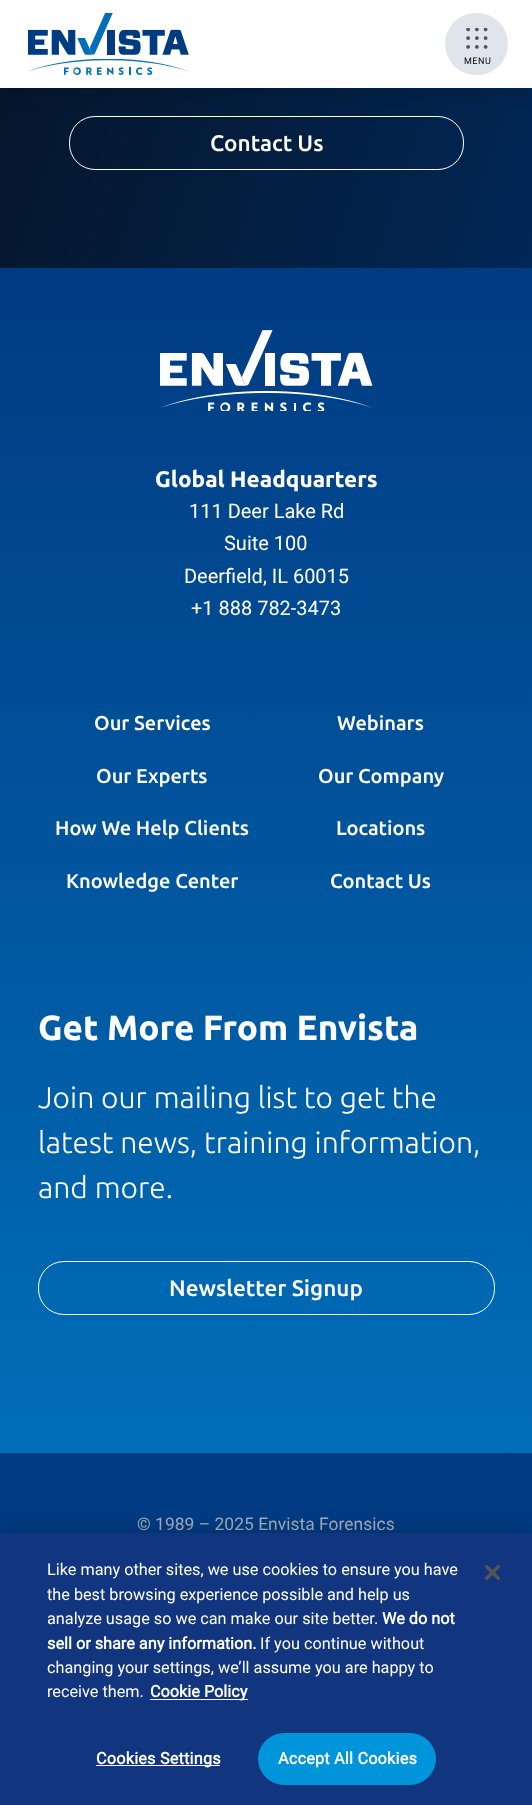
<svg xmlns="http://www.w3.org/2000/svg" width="532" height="1805">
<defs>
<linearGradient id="g1" gradientUnits="userSpaceOnUse" x1="-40" y1="-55" x2="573" y2="144"><stop offset="0" stop-color="#061426"/><stop offset="1" stop-color="#012756"/></linearGradient>
<linearGradient id="g2" gradientUnits="userSpaceOnUse" x1="266" y1="268" x2="266" y2="1453"><stop offset="0" stop-color="#013b82"/><stop offset="1" stop-color="#006eb9"/></linearGradient>
</defs>
<rect width="100%" height="100%" fill="#013b82"/>
<rect y="88" width="532" height="180" fill="url(#g1)"/>
<rect x="69.5" y="116.5" width="394" height="53" rx="25.5" fill="none" stroke="#fff"/>
<rect width="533" height="88" fill="#00000033" filter="blur(10px)"/>
<rect width="532" height="88" fill="#fff"/>
<image x="28" y="13" width="161" height="62" href="media/1.png"/>
<rect x="445" y="13" width="63" height="62" rx="31" fill="#e0e4eb"/>
<image x="466" y="28" width="22" height="21" href="media/2.png"/>
<text x="464" y="64" style="font-family:Roboto;font-size:9px;letter-spacing:0.5px;fill:#000">MENU</text>
<text x="210" y="151" style="font-family:Ubuntu;font-size:22.5px;font-weight:500;fill:#fff">Contact Us</text>
<rect y="322" width="532" height="1131" fill="url(#g2)"/>
<image x="160" y="330" width="213" height="81" href="media/3.png"/>
<text x="155" y="487" style="font-family:Ubuntu;font-size:22.5px;font-weight:bold;fill:#fff">Global Headquarters</text>
<text x="189" y="518" style="font-family:Roboto;font-size:20px;fill:#fff">111 Deer Lake Rd</text>
<text x="224" y="550" style="font-family:Roboto;font-size:20px;fill:#fff">Suite 100</text>
<text x="184" y="583" style="font-family:Roboto;font-size:20px;fill:#fff">Deerfield, IL 60015</text>
<text x="191" y="615" style="font-family:Roboto;font-size:20px;fill:#fff">+1 888 782-3473</text>
<text x="94" y="730" style="font-family:Ubuntu;font-size:20px;font-weight:500;fill:#fff">Our Services</text>
<text x="337" y="730" style="font-family:Ubuntu;font-size:20px;font-weight:500;fill:#fff">Webinars</text>
<text x="96" y="783" style="font-family:Ubuntu;font-size:20px;font-weight:500;fill:#fff">Our Experts</text>
<text x="318" y="783" style="font-family:Ubuntu;font-size:20px;font-weight:500;fill:#fff">Our Company</text>
<text x="55" y="835" style="font-family:Ubuntu;font-size:20px;font-weight:500;fill:#fff">How We Help Clients</text>
<text x="336" y="835" style="font-family:Ubuntu;font-size:20px;font-weight:500;fill:#fff">Locations</text>
<text x="66" y="888" style="font-family:Ubuntu;font-size:20px;font-weight:500;fill:#fff">Knowledge Center</text>
<text x="330" y="888" style="font-family:Ubuntu;font-size:20px;font-weight:500;fill:#fff">Contact Us</text>
<text x="38" y="1040" style="font-family:Ubuntu;font-size:35px;font-weight:bold;fill:#fff">Get More From Envista</text>
<text x="38" y="1108" style="font-family:Ubuntu;font-size:30px;font-weight:300;fill:#fff">Join our mailing list to get the</text>
<text x="38" y="1153" style="font-family:Ubuntu;font-size:30px;font-weight:300;fill:#fff">latest news, training information,</text>
<text x="38" y="1198" style="font-family:Ubuntu;font-size:30px;font-weight:300;fill:#fff">and more.</text>
<rect x="38.5" y="1261.5" width="456" height="53" rx="25.5" fill="none" stroke="#fff"/>
<text x="169" y="1296" style="font-family:Ubuntu;font-size:22.5px;font-weight:500;fill:#fff">Newsletter Signup</text>
<text x="137" y="1530" style="font-family:Roboto;font-size:17.5px;fill:#a6acb8">© 1989 – 2025 Envista Forensics</text>
<rect y="1533" width="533" height="272" fill="#00000033" filter="blur(11px)"/>
<rect y="1533" width="532" height="272" fill="#11357e"/>
<text x="47" y="1575" style="font-family:Roboto;font-size:16.25px;fill:#fff">Like many other sites, we use cookies to ensure you have</text>
<text x="47" y="1600" style="font-family:Roboto;font-size:16.25px;fill:#fff">the best browsing experience possible and help us</text>
<text x="47" y="1624" style="font-family:Roboto;font-size:16.25px;fill:#fff">analyze usage so we can make our site better.</text>
<text x="382" y="1624" style="font-family:Roboto;font-size:16.25px;font-weight:bold;fill:#fff">We do not</text>
<text x="47" y="1649" style="font-family:Roboto;font-size:16.25px;font-weight:bold;fill:#fff">sell or share any information.</text>
<text x="260" y="1649" style="font-family:Roboto;font-size:16.25px;fill:#fff">If you continue without</text>
<text x="47" y="1673" style="font-family:Roboto;font-size:16.25px;fill:#fff">changing your settings, we’ll assume you are happy to</text>
<text x="47" y="1697" style="font-family:Roboto;font-size:16.25px;fill:#fff">receive them.</text>
<rect x="150" y="1699" width="98" height="1" fill="#fff"/>
<text x="150" y="1697" style="font-family:Roboto;font-size:16.25px;font-weight:bold;fill:#fff">Cookie Policy</text>
<rect x="96" y="1765" width="124" height="1" fill="#fff"/>
<text x="96" y="1764" style="font-family:Roboto;font-size:16.25px;font-weight:bold;letter-spacing:0.2px;fill:#fff">Cookies Settings</text>
<rect x="258.5" y="1733.5" width="177" height="51" rx="25.5" fill="#0095da" stroke="#0095da"/>
<text x="278" y="1764" style="font-family:Roboto;font-size:16.25px;font-weight:bold;letter-spacing:0.2px;fill:#fff">Accept All Cookies</text>
<image x="485" y="1565" width="15" height="15" href="media/4.png"/>
</svg>
